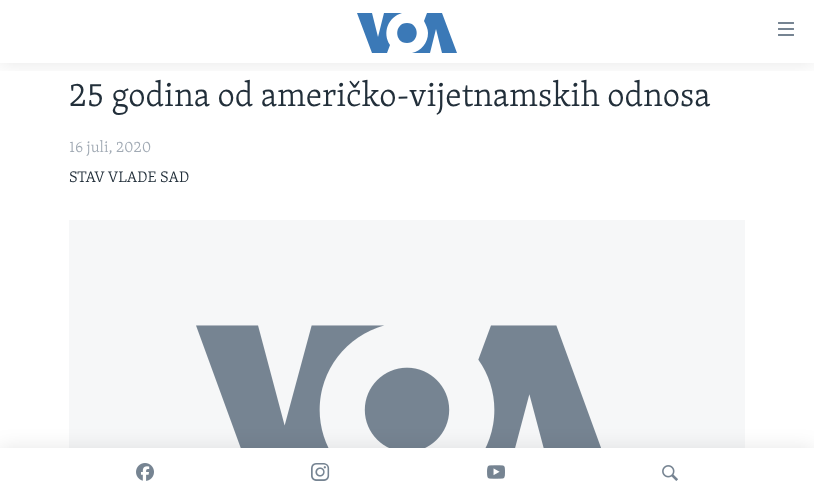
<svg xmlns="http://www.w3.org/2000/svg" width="814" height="498">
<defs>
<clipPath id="clip1"><rect x="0" y="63" width="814" height="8"/></clipPath>
</defs>
<rect width="100%" height="100%" fill="#fff"/>
<g clip-path="url(#clip1)">
<rect width="814" height="63" fill="#0000001a" filter="blur(10px)"/>
</g>
<path d="M390 45l-3 8h-15l-15-40h15l6 24l6-24h18c-14 4-20 20-12 32zm17-22c-13 0-13 20 0 20c13 0 13-20 0-20zm21 10c0 10-7 18-16 20h18l6-24l6 24h15l-15-40h-15l-3 8c2 4 4 8 4 12z" fill="#3b79b7"/>
<image x="778" y="22" width="16" height="14" href="media/1.png"/>
<rect x="69" y="220" width="676" height="228" fill="#f6f7f8"/>
<image x="196" y="325" width="405" height="123" href="media/6.png"/>
<rect y="448" width="814" height="50" fill="#0000001a" filter="blur(10px)"/>
<rect y="448" width="814" height="50" fill="#fff"/>
<image x="136" y="463" width="18" height="18" href="media/2.png"/>
<image x="311" y="463" width="19" height="18" href="media/3.png"/>
<image x="487" y="465" width="18" height="14" href="media/4.png"/>
<image x="662" y="465" width="16" height="16" href="media/5.png"/>
<text x="69" y="106" style="font-family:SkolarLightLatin;font-size:34.25px;font-weight:300;fill:#222f3a">25 godina od američko-vijetnamskih odnosa</text>
<text x="69" y="152" style="font-family:SkolarLightLatin;font-size:15.75px;font-weight:300;fill:#a1aab4">16 juli, 2020</text>
<text x="69" y="182" style="font-family:SkolarLightLatin;font-size:15.75px;font-weight:300;fill:#222f3a">STAV VLADE SAD</text>
</svg>
